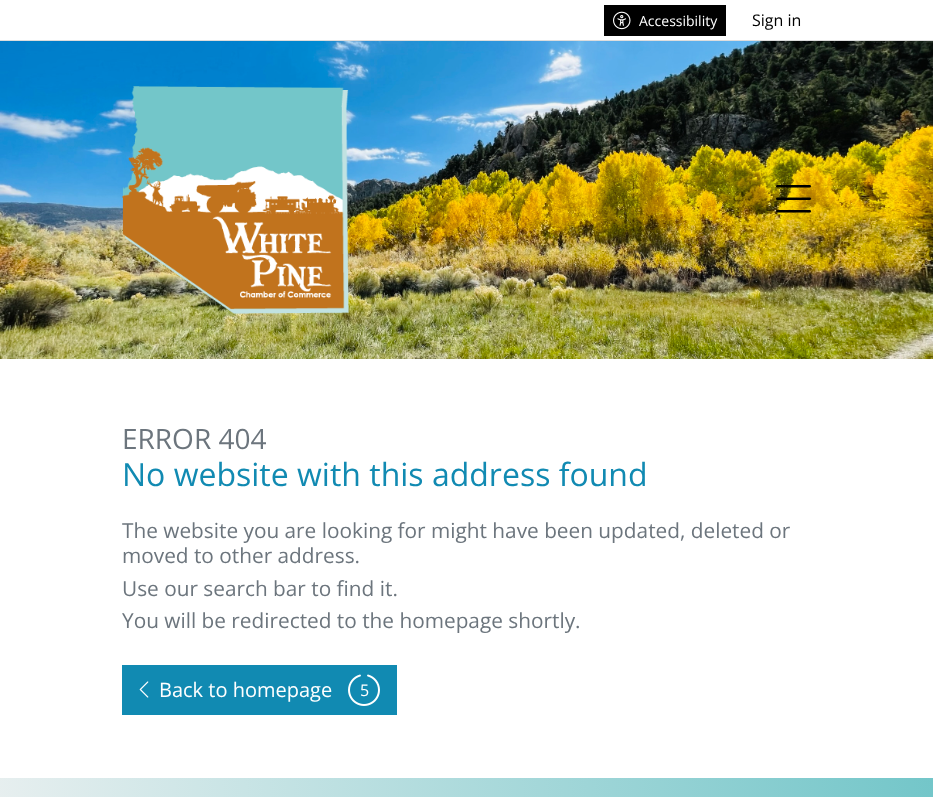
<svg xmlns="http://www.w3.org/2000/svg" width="933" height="797">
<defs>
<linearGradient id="g1" gradientUnits="userSpaceOnUse" x1="-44" y1="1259" x2="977" y2="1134"><stop offset="0" stop-color="#f3f3f3"/><stop offset="1" stop-color="#73c6c9"/></linearGradient>
</defs>
<rect width="100%" height="100%" fill="#fff"/>
<rect y="40" width="933" height="1" fill="#ddd"/>
<rect x="604" y="5" width="122" height="31" fill="#000"/>
<image x="613" y="11" width="18" height="19" href="media/1.png"/>
<text x="639" y="26" style="font-family:Open Sans;font-size:14px;fill:#fff">Accessibility</text>
<text x="752" y="26" style="font-family:Open Sans;font-size:16px;fill:#000">Sign in</text>
<image x="0" y="41" width="933" height="318" href="media/2.png"/>
<image x="122" y="86" width="227" height="228" href="media/3.png"/>
<image x="776" y="185" width="35" height="28" href="media/4.png"/>
<text x="122" y="449" style="font-family:Open Sans;font-size:28px;fill:#6c757d">ERROR 404</text>
<text x="122" y="486" style="font-family:Open Sans;font-size:32px;fill:#118ab2">No website with this address found</text>
<text x="122" y="538" style="font-family:Open Sans;font-size:20.8px;fill:#6c757d">The website you are looking for might have been updated, deleted or</text>
<text x="122" y="563" style="font-family:Open Sans;font-size:20.8px;fill:#6c757d">moved to other address.</text>
<text x="122" y="596" style="font-family:Open Sans;font-size:20.8px;fill:#6c757d">Use our search bar to find it.</text>
<text x="122" y="628" style="font-family:Open Sans;font-size:20.8px;fill:#6c757d">You will be redirected to the homepage shortly.</text>
<rect x="122" y="665" width="275" height="50" fill="#118ab2"/>
<image x="139" y="681" width="10" height="17" href="media/5.png"/>
<text x="159" y="697" style="font-family:Open Sans;font-size:20px;fill:#fff">Back to homepage</text>
<text x="360" y="696" style="font-family:Open Sans;font-size:16px;fill:#fff">5</text>
<image x="348" y="674" width="32" height="32" href="media/6.png"/>
<rect y="778" width="933" height="19" fill="url(#g1)"/>
</svg>
